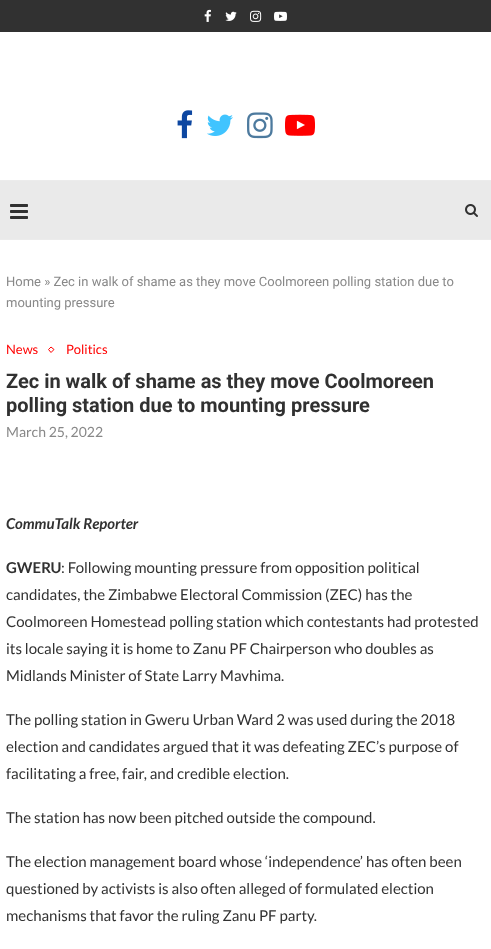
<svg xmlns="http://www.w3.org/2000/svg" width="491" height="949">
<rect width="100%" height="100%" fill="#fff"/>
<rect width="491" height="32" fill="#313131"/>
<image x="204" y="9" width="7" height="13" href="media/1.png"/>
<image x="225" y="11" width="12" height="10" href="media/2.png"/>
<image x="250" y="10" width="12" height="12" href="media/3.png"/>
<image x="274" y="11" width="13" height="10" href="media/4.png"/>
<image x="177" y="110" width="16" height="29" href="media/5.png"/>
<image x="207" y="114" width="26" height="22" href="media/6.png"/>
<image x="247" y="112" width="26" height="27" href="media/7.png"/>
<image x="285" y="114" width="30" height="22" href="media/8.png"/>
<rect y="181" width="491" height="58" fill="#eaeaea"/>
<rect y="180" width="491" height="1" fill="#ececec"/>
<rect y="239" width="491" height="1" fill="#ececec"/>
<image x="10" y="204" width="18" height="15" href="media/9.png"/>
<image x="465" y="204" width="13" height="13" href="media/10.png"/>
<text x="6" y="286" style="font-family:Roboto;font-size:13px;fill:#888">Home » Zec in walk of shame as they move Coolmoreen polling station due to</text>
<text x="6" y="307" style="font-family:Roboto;font-size:13px;fill:#888">mounting pressure</text>
<text x="6" y="354" style="font-family:Lato;font-size:13px;fill:#f00">News</text>
<path d="M51 347l3 2.5l-3 3l-2.5-3z" fill="none" stroke="#f00"/>
<text x="66" y="354" style="font-family:Lato;font-size:13px;fill:#f00">Politics</text>
<text x="6" y="388" style="font-family:Roboto;font-size:20px;font-weight:bold;fill:#313131">Zec in walk of shame as they move Coolmoreen</text>
<text x="6" y="412" style="font-family:Roboto;font-size:20px;font-weight:bold;fill:#313131">polling station due to mounting pressure</text>
<text x="6" y="437" style="font-family:Lato;font-size:14px;fill:#888">March 25, 2022</text>
<text x="6" y="529" style="font-family:Lato;font-size:15px;font-weight:bold;font-style:italic;fill:#313131">CommuTalk Reporter</text>
<text x="6" y="573" style="font-family:Lato;font-size:15px;font-weight:bold;fill:#313131">GWERU</text>
<text x="61" y="573" style="font-family:Lato;font-size:15px;fill:#313131">: Following mounting pressure from opposition political</text>
<text x="6" y="600" style="font-family:Lato;font-size:15px;fill:#313131">candidates, the Zimbabwe Electoral Commission (ZEC) has the</text>
<text x="6" y="627" style="font-family:Lato;font-size:15px;fill:#313131">Coolmoreen Homestead polling station which contestants had protested</text>
<text x="6" y="654" style="font-family:Lato;font-size:15px;fill:#313131">its locale saying it is home to Zanu PF Chairperson who doubles as</text>
<text x="6" y="681" style="font-family:Lato;font-size:15px;fill:#313131">Midlands Minister of State Larry Mavhima.</text>
<text x="6" y="725" style="font-family:Lato;font-size:15px;fill:#313131">The polling station in Gweru Urban Ward 2 was used during the 2018</text>
<text x="6" y="752" style="font-family:Lato;font-size:15px;fill:#313131">election and candidates argued that it was defeating ZEC’s purpose of</text>
<text x="6" y="779" style="font-family:Lato;font-size:15px;fill:#313131">facilitating a free, fair, and credible election.</text>
<text x="6" y="823" style="font-family:Lato;font-size:15px;fill:#313131">The station has now been pitched outside the compound.</text>
<text x="6" y="867" style="font-family:Lato;font-size:15px;fill:#313131">The election management board whose ‘independence’ has often been</text>
<text x="6" y="894" style="font-family:Lato;font-size:15px;fill:#313131">questioned by activists is also often alleged of formulated election</text>
<text x="6" y="921" style="font-family:Lato;font-size:15px;fill:#313131">mechanisms that favor the ruling Zanu PF party.</text>
</svg>
